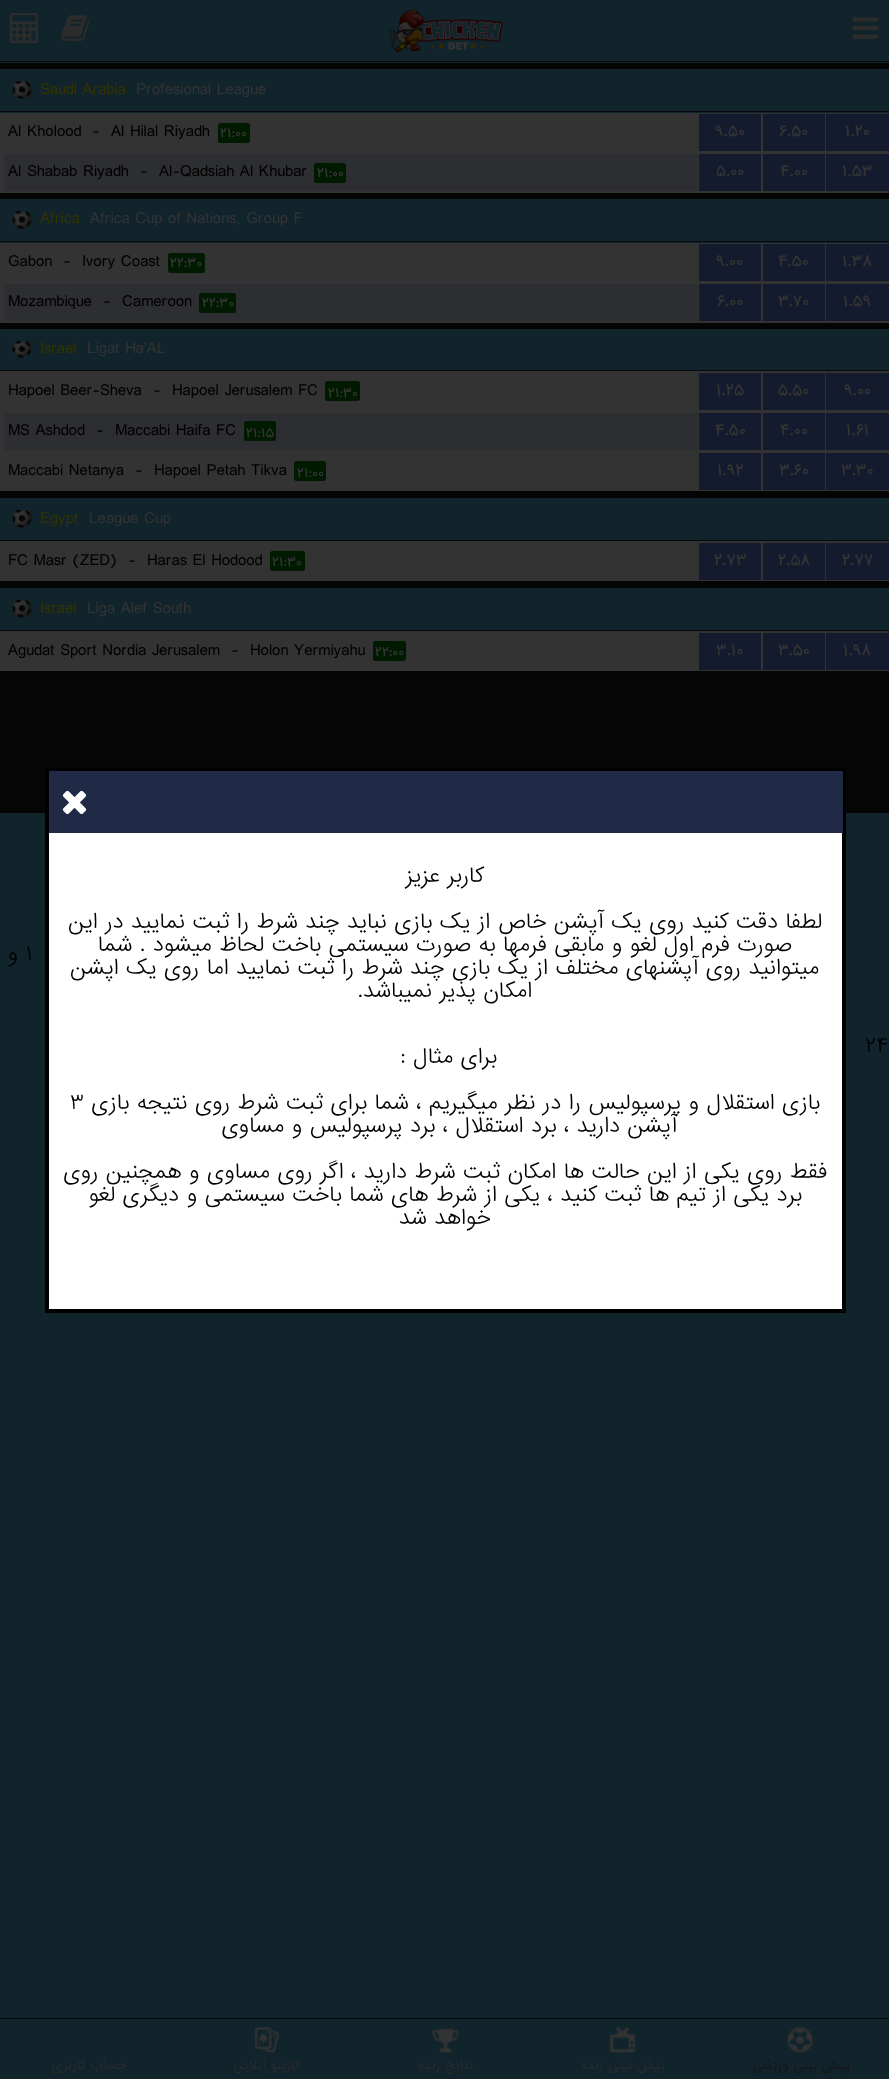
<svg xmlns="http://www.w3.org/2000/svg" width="889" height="2079">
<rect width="100%" height="100%" fill="#11242c"/>
<rect y="61" width="889" height="1" fill="#06080e"/>
<image x="852" y="17" width="27" height="22" href="media/1.png"/>
<image x="389" y="9" width="114" height="44" href="media/2.png"/>
<image x="61" y="15" width="29" height="26" href="media/3.png"/>
<image x="10" y="13" width="28" height="31" href="media/4.png"/>
<rect y="63" width="889" height="750" fill="#050506"/>
<rect y="69" width="889" height="44" fill="#11242c"/>
<rect y="111" width="889" height="1" fill="#06080e"/>
<image x="12" y="81" width="20" height="18" href="media/5.png"/>
<text x="136" y="94" style="font-family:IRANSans;font-size:15px;fill:#333">Profesional League</text>
<text x="40" y="94" style="font-family:IRANSans;font-size:15px;fill:#330">Saudi Arabia</text>
<rect y="113" width="889" height="80" fill="#333"/>
<rect x="826" y="114" width="63" height="37" fill="#151b2f"/>
<text x="845" y="136" style="font-family:IRANSans;font-size:15px;font-weight:500;fill:#333">۱.۲۰</text>
<rect x="763" y="114" width="62" height="37" fill="#151b2f"/>
<text x="779" y="136" style="font-family:IRANSans;font-size:15px;font-weight:500;fill:#333">۶.۵۰</text>
<rect x="699" y="114" width="62" height="37" fill="#151b2f"/>
<text x="715" y="136" style="font-family:IRANSans;font-size:15px;font-weight:500;fill:#333">۹.۵۰</text>
<rect x="218" y="123" width="32" height="20" rx="2.5" fill="#001a00"/>
<text x="220" y="137" style="font-family:IRANSans;font-size:12.5px;font-weight:500;fill:#333">۲۱:۰۰</text>
<text x="111" y="136" style="font-family:IRANSans;font-size:15px;fill:#000">Al Hilal Riyadh</text>
<text x="92" y="136" style="font-family:IRANSans;font-size:15px;fill:#000">-</text>
<text x="8" y="136" style="font-family:IRANSans;font-size:15px;fill:#000">Al Kholood</text>
<rect x="826" y="154" width="63" height="37" fill="#151b2f"/>
<text x="842" y="176" style="font-family:IRANSans;font-size:15px;font-weight:500;fill:#333">۱.۵۳</text>
<rect x="763" y="154" width="62" height="37" fill="#151b2f"/>
<text x="780" y="176" style="font-family:IRANSans;font-size:15px;font-weight:500;fill:#333">۴.۰۰</text>
<rect x="699" y="154" width="62" height="37" fill="#151b2f"/>
<text x="716" y="176" style="font-family:IRANSans;font-size:15px;font-weight:500;fill:#333">۵.۰۰</text>
<rect x="4" y="154" width="694" height="37" fill="#2d2e31"/>
<rect x="314" y="163" width="32" height="20" rx="2.5" fill="#001a00"/>
<text x="317" y="177" style="font-family:IRANSans;font-size:12.5px;font-weight:500;fill:#333">۲۱:۰۰</text>
<text x="159" y="176" style="font-family:IRANSans;font-size:15px;fill:#000">Al-Qadsiah Al Khubar</text>
<text x="140" y="176" style="font-family:IRANSans;font-size:15px;fill:#000">-</text>
<text x="8" y="176" style="font-family:IRANSans;font-size:15px;fill:#000">Al Shabab Riyadh</text>
<rect y="199" width="889" height="44" fill="#11242c"/>
<rect y="241" width="889" height="1" fill="#06080e"/>
<image x="12" y="211" width="20" height="18" href="media/5.png"/>
<text x="90" y="223" style="font-family:IRANSans;font-size:15px;fill:#333">Africa Cup of Nations, Group F</text>
<text x="40" y="223" style="font-family:IRANSans;font-size:15px;fill:#330">Africa</text>
<rect y="243" width="889" height="80" fill="#333"/>
<rect x="826" y="244" width="63" height="37" fill="#151b2f"/>
<text x="842" y="266" style="font-family:IRANSans;font-size:15px;font-weight:500;fill:#333">۱.۳۸</text>
<rect x="763" y="244" width="62" height="37" fill="#151b2f"/>
<text x="778" y="266" style="font-family:IRANSans;font-size:15px;font-weight:500;fill:#333">۴.۵۰</text>
<rect x="699" y="244" width="62" height="37" fill="#151b2f"/>
<text x="716" y="266" style="font-family:IRANSans;font-size:15px;font-weight:500;fill:#333">۹.۰۰</text>
<rect x="168" y="253" width="37" height="20" rx="2.5" fill="#001a00"/>
<text x="170" y="267" style="font-family:IRANSans;font-size:12.5px;font-weight:500;fill:#333">۲۲:۳۰</text>
<text x="82" y="266" style="font-family:IRANSans;font-size:15px;fill:#000">Ivory Coast</text>
<text x="63" y="266" style="font-family:IRANSans;font-size:15px;fill:#000">-</text>
<text x="8" y="266" style="font-family:IRANSans;font-size:15px;fill:#000">Gabon</text>
<rect x="826" y="284" width="63" height="37" fill="#151b2f"/>
<text x="843" y="306" style="font-family:IRANSans;font-size:15px;font-weight:500;fill:#333">۱.۵۹</text>
<rect x="763" y="284" width="62" height="37" fill="#151b2f"/>
<text x="778" y="306" style="font-family:IRANSans;font-size:15px;font-weight:500;fill:#333">۳.۷۰</text>
<rect x="699" y="284" width="62" height="37" fill="#151b2f"/>
<text x="717" y="306" style="font-family:IRANSans;font-size:15px;font-weight:500;fill:#333">۶.۰۰</text>
<rect x="4" y="284" width="694" height="37" fill="#2d2e31"/>
<rect x="199" y="293" width="37" height="20" rx="2.5" fill="#001a00"/>
<text x="202" y="307" style="font-family:IRANSans;font-size:12.5px;font-weight:500;fill:#333">۲۲:۳۰</text>
<text x="122" y="306" style="font-family:IRANSans;font-size:15px;fill:#000">Cameroon</text>
<text x="103" y="306" style="font-family:IRANSans;font-size:15px;fill:#000">-</text>
<text x="8" y="306" style="font-family:IRANSans;font-size:15px;fill:#000">Mozambique</text>
<rect y="329" width="889" height="41" fill="#11242c"/>
<rect y="370" width="889" height="1" fill="#06080e"/>
<image x="12" y="341" width="20" height="17" href="media/6.png"/>
<text x="87" y="353" style="font-family:IRANSans;font-size:15px;fill:#333">Ligat Ha'AL</text>
<text x="40" y="353" style="font-family:IRANSans;font-size:15px;fill:#330">Israel</text>
<rect y="371" width="889" height="120" fill="#333"/>
<rect x="826" y="373" width="63" height="37" fill="#151b2f"/>
<text x="844" y="395" style="font-family:IRANSans;font-size:15px;font-weight:500;fill:#333">۹.۰۰</text>
<rect x="763" y="373" width="62" height="37" fill="#151b2f"/>
<text x="778" y="395" style="font-family:IRANSans;font-size:15px;font-weight:500;fill:#333">۵.۵۰</text>
<rect x="699" y="373" width="62" height="37" fill="#151b2f"/>
<text x="716" y="395" style="font-family:IRANSans;font-size:15px;font-weight:500;fill:#333">۱.۲۵</text>
<rect x="325" y="381" width="35" height="20" rx="2.5" fill="#001a00"/>
<text x="328" y="397" style="font-family:IRANSans;font-size:12.5px;font-weight:500;fill:#333">۲۱:۳۰</text>
<text x="172" y="395" style="font-family:IRANSans;font-size:15px;fill:#000">Hapoel Jerusalem FC</text>
<text x="153" y="395" style="font-family:IRANSans;font-size:15px;fill:#000">-</text>
<text x="8" y="395" style="font-family:IRANSans;font-size:15px;fill:#000">Hapoel Beer-Sheva</text>
<rect x="826" y="413" width="63" height="37" fill="#151b2f"/>
<text x="846" y="435" style="font-family:IRANSans;font-size:15px;font-weight:500;fill:#333">۱.۶۱</text>
<rect x="763" y="413" width="62" height="37" fill="#151b2f"/>
<text x="780" y="435" style="font-family:IRANSans;font-size:15px;font-weight:500;fill:#333">۴.۰۰</text>
<rect x="699" y="413" width="62" height="37" fill="#151b2f"/>
<text x="715" y="435" style="font-family:IRANSans;font-size:15px;font-weight:500;fill:#333">۴.۵۰</text>
<rect x="4" y="413" width="694" height="37" fill="#2d2e31"/>
<rect x="244" y="421" width="32" height="20" rx="2.5" fill="#001a00"/>
<text x="246" y="437" style="font-family:IRANSans;font-size:12.5px;font-weight:500;fill:#333">۲۱:۱۵</text>
<text x="115" y="435" style="font-family:IRANSans;font-size:15px;fill:#000">Maccabi Haifa FC</text>
<text x="96" y="435" style="font-family:IRANSans;font-size:15px;fill:#000">-</text>
<text x="8" y="435" style="font-family:IRANSans;font-size:15px;fill:#000">MS Ashdod</text>
<rect x="826" y="453" width="63" height="37" fill="#151b2f"/>
<text x="841" y="475" style="font-family:IRANSans;font-size:15px;font-weight:500;fill:#333">۳.۳۰</text>
<rect x="763" y="453" width="62" height="37" fill="#151b2f"/>
<text x="779" y="475" style="font-family:IRANSans;font-size:15px;font-weight:500;fill:#333">۳.۶۰</text>
<rect x="699" y="453" width="62" height="37" fill="#151b2f"/>
<text x="717" y="475" style="font-family:IRANSans;font-size:15px;font-weight:500;fill:#333">۱.۹۲</text>
<rect x="294" y="461" width="32" height="20" rx="2.5" fill="#001a00"/>
<text x="297" y="477" style="font-family:IRANSans;font-size:12.5px;font-weight:500;fill:#333">۲۱:۰۰</text>
<text x="154" y="475" style="font-family:IRANSans;font-size:15px;fill:#000">Hapoel Petah Tikva</text>
<text x="135" y="475" style="font-family:IRANSans;font-size:15px;fill:#000">-</text>
<text x="8" y="475" style="font-family:IRANSans;font-size:15px;fill:#000">Maccabi Netanya</text>
<rect y="498" width="889" height="42" fill="#11242c"/>
<rect y="540" width="889" height="1" fill="#06080e"/>
<image x="12" y="510" width="20" height="18" href="media/7.png"/>
<text x="89" y="523" style="font-family:IRANSans;font-size:15px;fill:#333">League Cup</text>
<text x="40" y="523" style="font-family:IRANSans;font-size:15px;fill:#330">Egypt</text>
<rect y="541" width="889" height="40" fill="#333"/>
<rect x="826" y="543" width="63" height="37" fill="#151b2f"/>
<text x="842" y="565" style="font-family:IRANSans;font-size:15px;font-weight:500;fill:#333">۲.۷۷</text>
<rect x="763" y="543" width="62" height="37" fill="#151b2f"/>
<text x="778" y="565" style="font-family:IRANSans;font-size:15px;font-weight:500;fill:#333">۲.۵۸</text>
<rect x="699" y="543" width="62" height="37" fill="#151b2f"/>
<text x="714" y="565" style="font-family:IRANSans;font-size:15px;font-weight:500;fill:#333">۲.۷۳</text>
<rect x="270" y="551" width="35" height="20" rx="2.5" fill="#001a00"/>
<text x="272" y="566" style="font-family:IRANSans;font-size:12.5px;font-weight:500;fill:#333">۲۱:۳۰</text>
<text x="147" y="565" style="font-family:IRANSans;font-size:15px;fill:#000">Haras El Hodood</text>
<text x="128" y="565" style="font-family:IRANSans;font-size:15px;fill:#000">-</text>
<text x="8" y="565" style="font-family:IRANSans;font-size:15px;fill:#000">FC Masr (ZED)</text>
<rect y="588" width="889" height="42" fill="#11242c"/>
<rect y="630" width="889" height="1" fill="#06080e"/>
<image x="12" y="600" width="20" height="18" href="media/7.png"/>
<text x="87" y="613" style="font-family:IRANSans;font-size:15px;fill:#333">Liga Alef South</text>
<text x="40" y="613" style="font-family:IRANSans;font-size:15px;fill:#330">Israel</text>
<rect y="631" width="889" height="40" fill="#333"/>
<rect x="826" y="633" width="63" height="37" fill="#151b2f"/>
<text x="843" y="655" style="font-family:IRANSans;font-size:15px;font-weight:500;fill:#333">۱.۹۸</text>
<rect x="763" y="633" width="62" height="37" fill="#151b2f"/>
<text x="778" y="655" style="font-family:IRANSans;font-size:15px;font-weight:500;fill:#333">۳.۵۰</text>
<rect x="699" y="633" width="62" height="37" fill="#151b2f"/>
<text x="716" y="655" style="font-family:IRANSans;font-size:15px;font-weight:500;fill:#333">۳.۱۰</text>
<rect x="373" y="641" width="33" height="20" rx="2.5" fill="#001a00"/>
<text x="375" y="656" style="font-family:IRANSans;font-size:12.5px;font-weight:500;fill:#333">۲۲:۰۰</text>
<text x="250" y="655" style="font-family:IRANSans;font-size:15px;fill:#000">Holon Yermiyahu</text>
<text x="231" y="655" style="font-family:IRANSans;font-size:15px;fill:#000">-</text>
<text x="8" y="655" style="font-family:IRANSans;font-size:15px;fill:#000">Agudat Sport Nordia Jerusalem</text>
<rect x="49" y="833" width="793" height="476" fill="#fff"/>
<rect x="47" y="770" width="797" height="541" fill="none" stroke="#000" stroke-width="4"/>
<rect x="49" y="771" width="794" height="62" fill="#202a47"/>
<image x="62" y="790" width="25" height="25" href="media/8.png"/>
<text x="484" y="882" style="font-family:IRANSans;font-size:20px;font-weight:300;direction:rtl;fill:#000">کاربر عزیز</text>
<text x="822" y="928" style="font-family:IRANSans;font-size:20px;font-weight:300;direction:rtl;fill:#000">لطفا دقت کنید روی یک آپشن خاص از یک بازی نباید چند شرط را ثبت نمایید در این</text>
<text x="792" y="951" style="font-family:IRANSans;font-size:20px;font-weight:300;direction:rtl;fill:#000">صورت فرم اول لغو و مابقی فرمها به صورت سیستمی باخت لحاظ میشود . شما</text>
<text x="819" y="974" style="font-family:IRANSans;font-size:20px;font-weight:300;direction:rtl;fill:#000">میتوانید روی آپشنهای مختلف از یک بازی چند شرط را ثبت نمایید اما روی یک اپشن</text>
<text x="532" y="997" style="font-family:IRANSans;font-size:20px;font-weight:300;direction:rtl;fill:#000">امکان پذیر نمیباشد.</text>
<text x="497" y="1063" style="font-family:IRANSans;font-size:20px;font-weight:300;direction:rtl;fill:#000">برای مثال :</text>
<text x="820" y="1109" style="font-family:IRANSans;font-size:20px;font-weight:300;direction:rtl;fill:#000">بازی استقلال و پرسپولیس را در نظر میگیریم ، شما برای ثبت شرط روی نتیجه بازی</text>
<text x="70" y="1109" style="font-family:IRANSans;font-size:20px;font-weight:300;fill:#000">۳</text>
<text x="677" y="1132" style="font-family:IRANSans;font-size:20px;font-weight:300;direction:rtl;fill:#000">آپشن دارید ، برد استقلال ، برد پرسپولیس و مساوی</text>
<text x="827" y="1178" style="font-family:IRANSans;font-size:20px;font-weight:300;direction:rtl;fill:#000">فقط روی یکی از این حالت ها امکان ثبت شرط دارید ، اگر روی مساوی و همچنین روی</text>
<text x="802" y="1201" style="font-family:IRANSans;font-size:20px;font-weight:300;direction:rtl;fill:#000">برد یکی از تیم ها ثبت کنید ، یکی از شرط های شما باخت سیستمی و دیگری لغو</text>
<text x="491" y="1224" style="font-family:IRANSans;font-size:20px;font-weight:300;direction:rtl;fill:#000">خواهد شد</text>
<text x="26" y="960" style="font-family:IRANSans;font-size:20px;font-weight:300;fill:#000">۱</text>
<text x="18" y="960" style="font-family:IRANSans;font-size:20px;font-weight:300;direction:rtl;fill:#000">و</text>
<text x="865" y="1052" style="font-family:IRANSans;font-size:20px;font-weight:300;fill:#000">۲۴</text>
<rect y="2018" width="889" height="1" fill="#06080e"/>
<image x="787" y="2027" width="26" height="26" href="media/9.png"/>
<text x="850" y="2069" style="font-family:IRANSans;font-size:12.5px;font-weight:300;direction:rtl;fill:#141414">پیش بینی ورزشی</text>
<image x="609" y="2027" width="27" height="26" href="media/10.png"/>
<text x="665" y="2069" style="font-family:IRANSans;font-size:12.5px;font-weight:300;direction:rtl;fill:#2c2c2c">پیش بینی زنده</text>
<image x="432" y="2028" width="27" height="25" href="media/11.png"/>
<text x="473" y="2069" style="font-family:IRANSans;font-size:12.5px;font-weight:300;direction:rtl;fill:#2c2c2c">نتایج زنده</text>
<image x="254" y="2027" width="25" height="26" href="media/12.png"/>
<text x="300" y="2069" style="font-family:IRANSans;font-size:12.5px;font-weight:300;direction:rtl;fill:#2c2c2c">کازینو آنلاین</text>
<text x="127" y="2069" style="font-family:IRANSans;font-size:12.5px;font-weight:300;direction:rtl;fill:#2c2c2c">حساب کاربری</text>
</svg>
